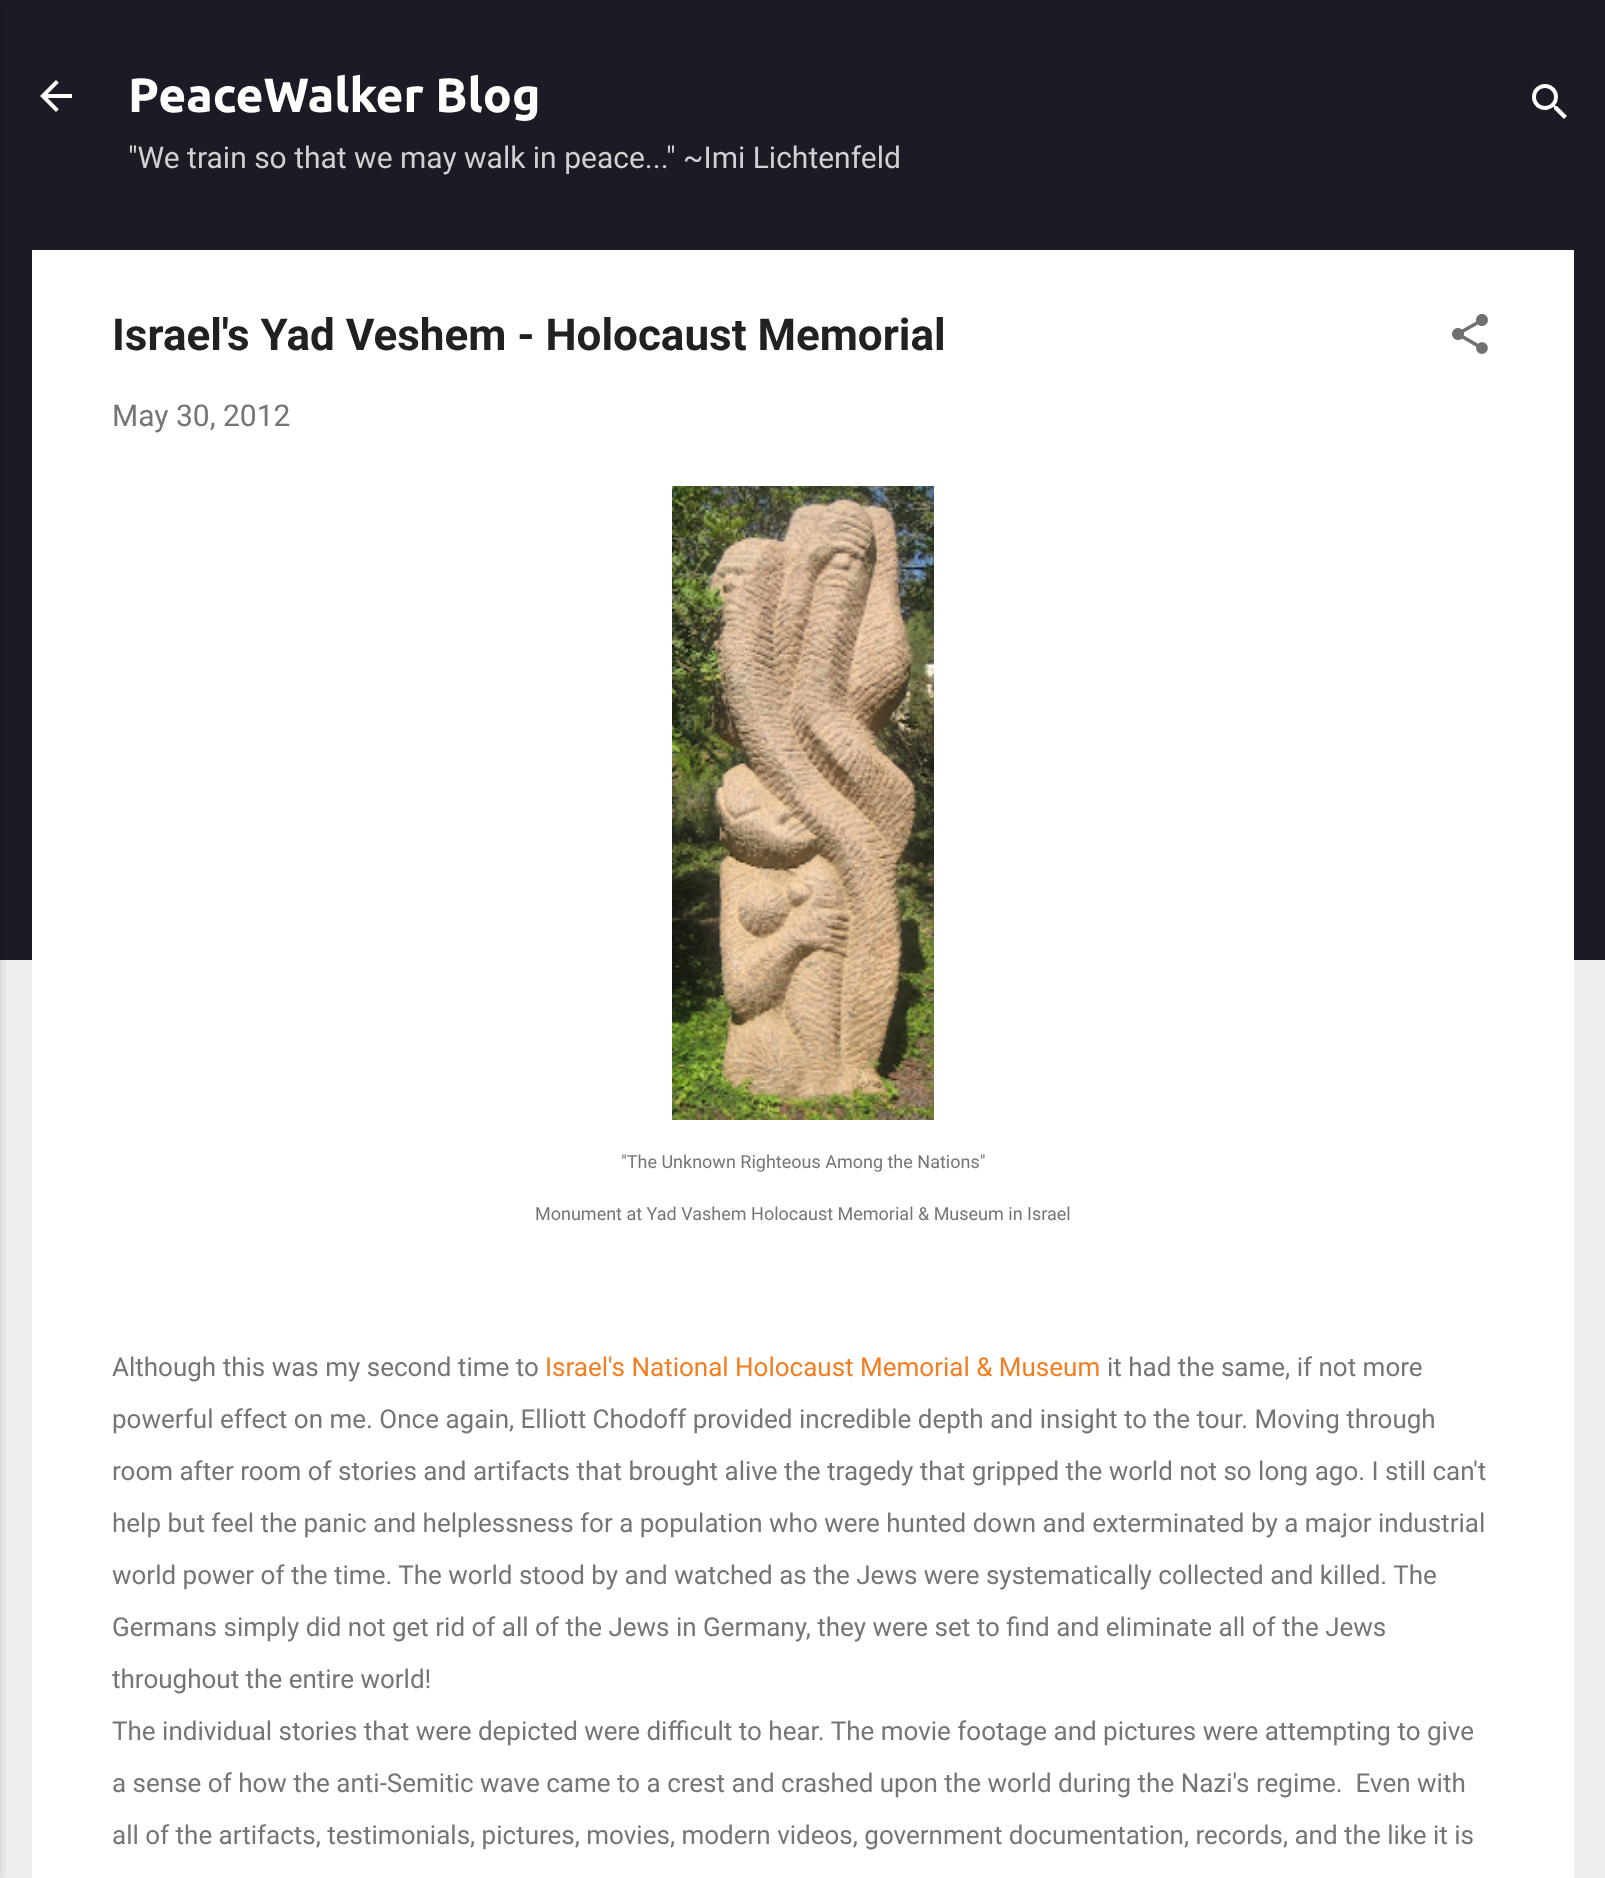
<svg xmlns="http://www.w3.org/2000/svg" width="1605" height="1878">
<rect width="100%" height="100%" fill="#eee"/>
<rect width="1605" height="960" fill="#1a1b24"/>
<rect x="-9" y="2" width="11" height="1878" fill="#0000001a" filter="blur(3px)"/>
<image x="40" y="80" width="32" height="32" href="media/1.png"/>
<text x="128" y="112" style="font-family:Ubuntu;font-size:48px;font-weight:bold;fill:#fff">PeaceWalker Blog</text>
<text x="128" y="168" style="font-family:Roboto;font-size:30px;fill:#d1d1d3">"We train so that we may walk in peace..." ~Imi Lichtenfeld</text>
<image x="1532" y="84" width="35" height="35" href="media/2.png"/>
<rect x="32" y="250" width="1542" height="1628" fill="#fff"/>
<text x="112" y="350" style="font-family:Roboto;font-size:44px;font-weight:bold;fill:#212121">Israel's Yad Veshem - Holocaust Memorial</text>
<image x="1452" y="314" width="36" height="40" href="media/3.png"/>
<text x="112" y="426" style="font-family:Roboto;font-size:30px;fill:#757575">May 30, 2012</text>
<image x="672" y="486" width="262" height="634" href="media/4.png"/>
<text x="621" y="1168" style="font-family:Roboto;font-size:18px;fill:#757575">"The Unknown Righteous Among the Nations"</text>
<text x="535" y="1220" style="font-family:Roboto;font-size:18px;fill:#757575">Monument at Yad Vashem Holocaust Memorial &amp; Museum in Israel</text>
<text x="112" y="1376" style="font-family:Roboto;font-size:26px;fill:#757575">Although this was my second time to</text>
<text x="545" y="1376" style="font-family:Roboto;font-size:26px;fill:#f37d21">Israel's National Holocaust Memorial &amp; Museum</text>
<text x="1107" y="1376" style="font-family:Roboto;font-size:26px;fill:#757575">it had the same, if not more</text>
<text x="112" y="1428" style="font-family:Roboto;font-size:26px;fill:#757575">powerful effect on me. Once again, Elliott Chodoff provided incredible depth and insight to the tour. Moving through</text>
<text x="112" y="1480" style="font-family:Roboto;font-size:26px;fill:#757575">room after room of stories and artifacts that brought alive the tragedy that gripped the world not so long ago. I still can't</text>
<text x="112" y="1532" style="font-family:Roboto;font-size:26px;fill:#757575">help but feel the panic and helplessness for a population who were hunted down and exterminated by a major industrial</text>
<text x="112" y="1584" style="font-family:Roboto;font-size:26px;fill:#757575">world power of the time. The world stood by and watched as the Jews were systematically collected and killed. The</text>
<text x="112" y="1636" style="font-family:Roboto;font-size:26px;fill:#757575">Germans simply did not get rid of all of the Jews in Germany, they were set to find and eliminate all of the Jews</text>
<text x="112" y="1688" style="font-family:Roboto;font-size:26px;fill:#757575">throughout the entire world!</text>
<text x="112" y="1740" style="font-family:Roboto;font-size:26px;fill:#757575">The individual stories that were depicted were difficult to hear. The movie footage and pictures were attempting to give</text>
<text x="112" y="1792" style="font-family:Roboto;font-size:26px;fill:#757575" xml:space="preserve">a sense of how the anti-Semitic wave came to a crest and crashed upon the world during the Nazi's regime.  Even with</text>
<text x="112" y="1844" style="font-family:Roboto;font-size:26px;fill:#757575">all of the artifacts, testimonials, pictures, movies, modern videos, government documentation, records, and the like it is</text>
</svg>
